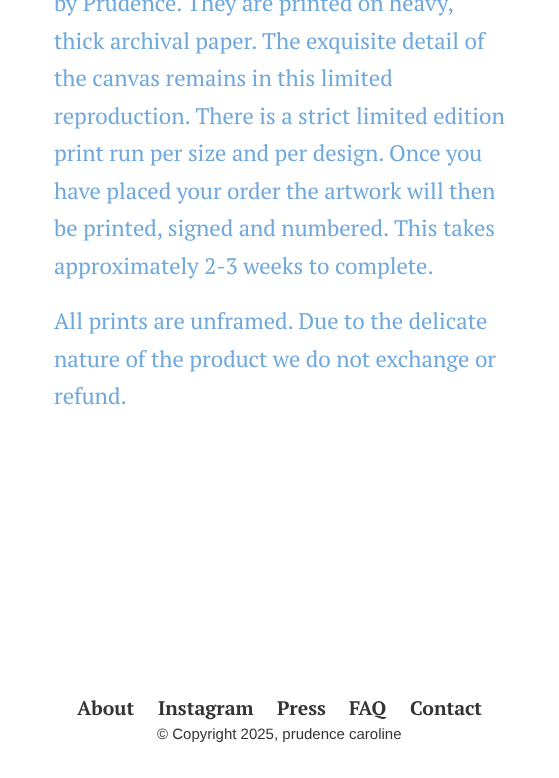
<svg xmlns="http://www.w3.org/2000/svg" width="559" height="778">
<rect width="100%" height="100%" fill="#fff"/>
<text x="54" y="11" style="font-family:PT Serif;font-size:22.5px;fill:#6fa8dc">by Prudence. They are printed on heavy,</text>
<text x="54" y="49" style="font-family:PT Serif;font-size:22.5px;fill:#6fa8dc">thick archival paper. The exquisite detail of</text>
<text x="54" y="86" style="font-family:PT Serif;font-size:22.5px;fill:#6fa8dc">the canvas remains in this limited</text>
<text x="54" y="124" style="font-family:PT Serif;font-size:22.5px;fill:#6fa8dc">reproduction. There is a strict limited edition</text>
<text x="54" y="161" style="font-family:PT Serif;font-size:22.5px;fill:#6fa8dc">print run per size and per design. Once you</text>
<text x="54" y="199" style="font-family:PT Serif;font-size:22.5px;fill:#6fa8dc">have placed your order the artwork will then</text>
<text x="54" y="236" style="font-family:PT Serif;font-size:22.5px;fill:#6fa8dc">be printed, signed and numbered. This takes</text>
<text x="54" y="274" style="font-family:PT Serif;font-size:22.5px;fill:#6fa8dc">approximately 2-3 weeks to complete.</text>
<text x="54" y="329" style="font-family:PT Serif;font-size:22.5px;fill:#6fa8dc">All prints are unframed. Due to the delicate</text>
<text x="54" y="367" style="font-family:PT Serif;font-size:22.5px;fill:#6fa8dc">nature of the product we do not exchange or</text>
<text x="54" y="404" style="font-family:PT Serif;font-size:22.5px;fill:#6fa8dc">refund.</text>
<text x="77" y="715" style="font-family:PT Serif;font-size:19.5px;font-weight:bold;fill:#363333">About</text>
<text x="158" y="715" style="font-family:PT Serif;font-size:19.5px;font-weight:bold;fill:#363333">Instagram</text>
<text x="277" y="715" style="font-family:PT Serif;font-size:19.5px;font-weight:bold;fill:#363333">Press</text>
<text x="349" y="715" style="font-family:PT Serif;font-size:19.5px;font-weight:bold;fill:#363333">FAQ</text>
<text x="410" y="715" style="font-family:PT Serif;font-size:19.5px;font-weight:bold;fill:#363333">Contact</text>
<text x="157" y="739" style="font-family:Liberation Sans;font-size:15px;fill:#363333">© Copyright 2025, prudence caroline</text>
</svg>
